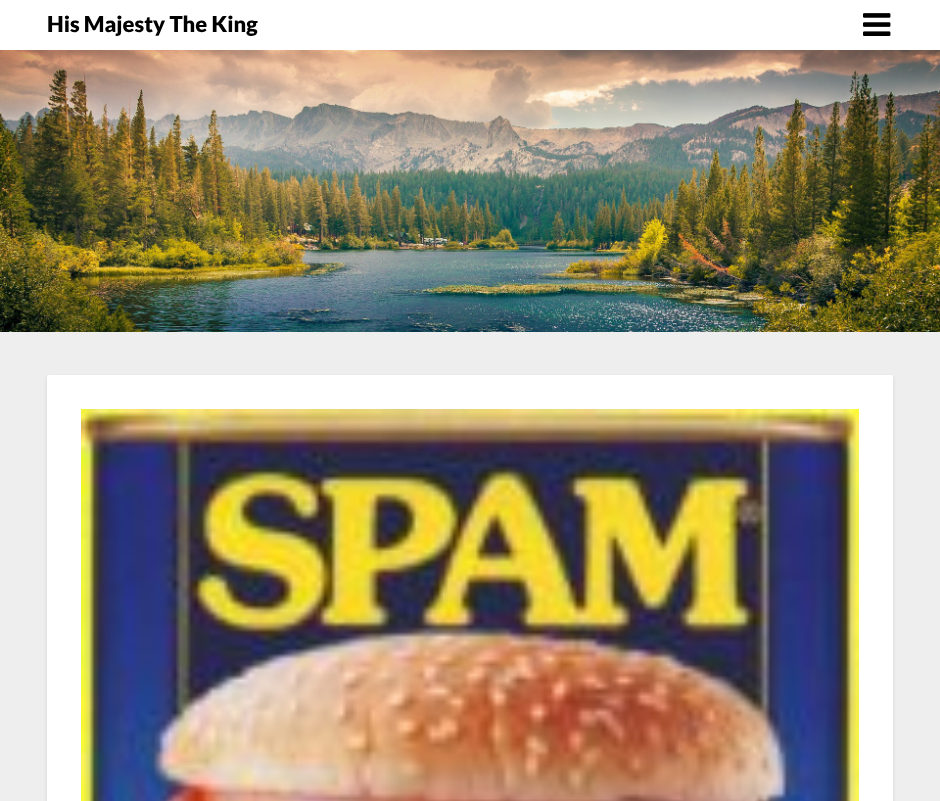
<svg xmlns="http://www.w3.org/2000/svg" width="940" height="801">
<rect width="100%" height="100%" fill="#eee"/>
<rect width="940" height="50" fill="#fff"/>
<text x="47" y="32" style="font-family:Lato;font-size:22px;font-weight:900;fill:#000">His Majesty The King</text>
<image x="863" y="13" width="28" height="23" href="media/1.png"/>
<image x="0" y="50" width="940" height="282" href="media/2.png"/>
<rect x="47" y="377" width="846" height="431" rx="1" fill="#0000001a" filter="blur(2px)"/>
<rect x="47" y="375" width="846" height="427" rx="1" fill="#fff"/>
<image x="81" y="409" width="778" height="392" href="media/3.png"/>
</svg>
